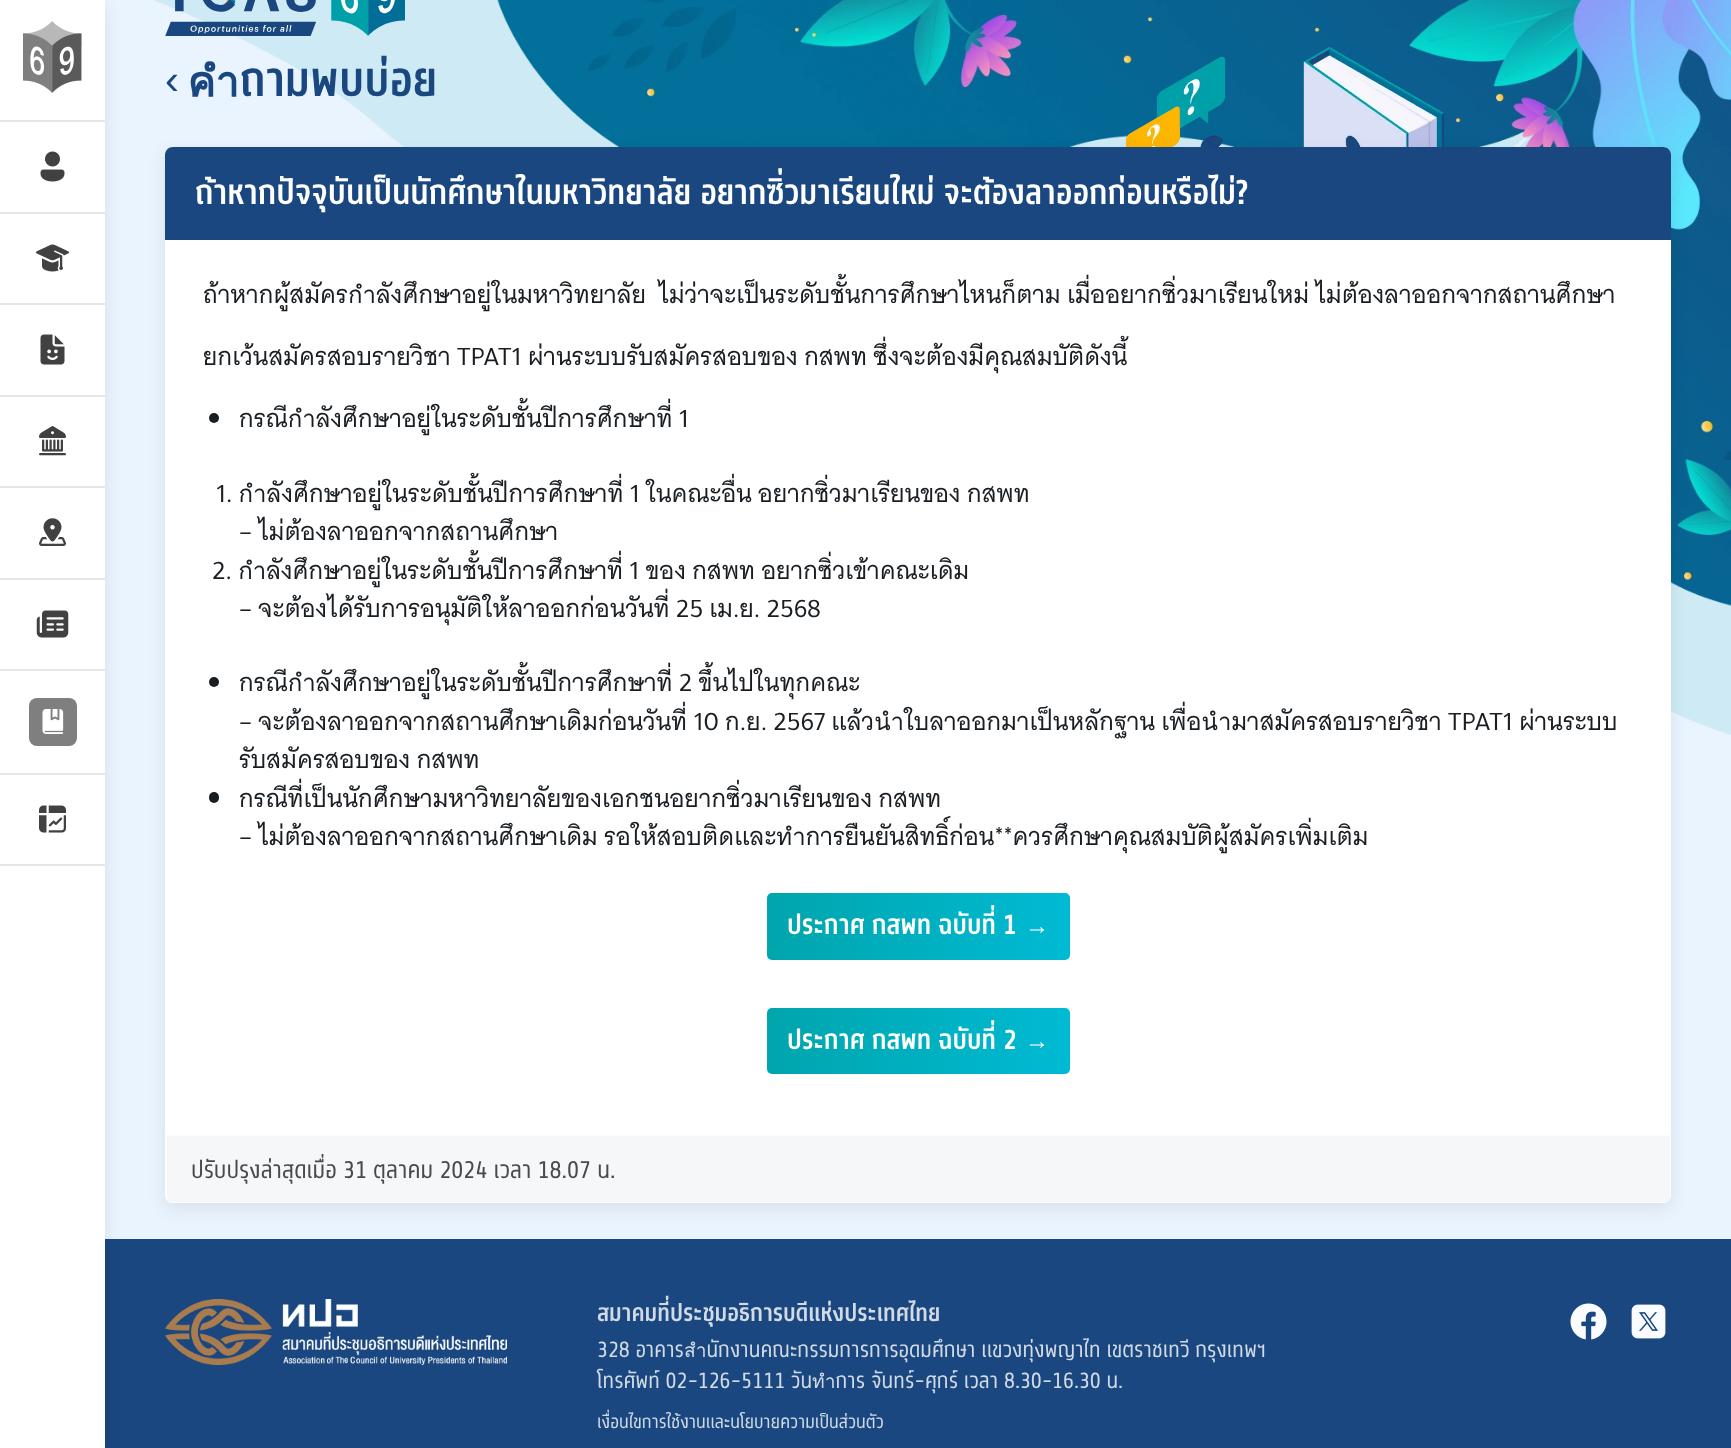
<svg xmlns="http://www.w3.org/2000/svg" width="1731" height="1448">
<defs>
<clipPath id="clip1"><path d="M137 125h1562v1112h-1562zm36 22h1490c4.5 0 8 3.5 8 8v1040c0 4.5-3.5 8-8 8h-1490c-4.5 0-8-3.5-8-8v-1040c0-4.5 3.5-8 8-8z" clip-rule="evenodd"/></clipPath>
<linearGradient id="g1" gradientUnits="userSpaceOnUse" x1="767" y1="926" x2="1676" y2="926"><stop offset="0" stop-color="#00a5ad"/><stop offset="0.33" stop-color="#00bad3"/><stop offset="0.67" stop-color="#006db6"/><stop offset="1" stop-color="#1598f0"/></linearGradient>
<linearGradient id="g2" gradientUnits="userSpaceOnUse" x1="767" y1="1041" x2="1676" y2="1041"><stop offset="0" stop-color="#00a5ad"/><stop offset="0.33" stop-color="#00bad3"/><stop offset="0.67" stop-color="#006db6"/><stop offset="1" stop-color="#1598f0"/></linearGradient>
</defs>
<rect width="100%" height="100%" fill="#e9f4ff"/>
<image x="154" y="0" width="1577" height="735" href="media/1.png"/>
<rect x="105" y="1239" width="1626" height="209" fill="#1a477f"/>
<rect y="6" width="105" height="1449" fill="#00000014" filter="blur(9px)"/>
<rect width="105" height="1448" fill="#fff"/>
<rect y="120" width="105" height="2" fill="#e6e6e6"/>
<image x="23" y="21" width="59" height="72" href="media/2.png"/>
<rect y="212" width="105" height="2" fill="#e6e6e6"/>
<image x="40" y="151" width="25" height="31" href="media/3.png"/>
<rect y="303" width="105" height="2" fill="#e6e6e6"/>
<image x="36" y="244" width="33" height="28" href="media/4.png"/>
<rect y="395" width="105" height="2" fill="#e6e6e6"/>
<image x="40" y="334" width="25" height="31" href="media/5.png"/>
<rect y="486" width="105" height="2" fill="#e6e6e6"/>
<image x="39" y="426" width="27" height="30" href="media/6.png"/>
<rect y="578" width="105" height="2" fill="#e6e6e6"/>
<image x="39" y="518" width="27" height="28" href="media/7.png"/>
<rect y="669" width="105" height="2" fill="#e6e6e6"/>
<image x="36" y="610" width="33" height="28" href="media/8.png"/>
<rect y="773" width="105" height="2" fill="#e6e6e6"/>
<rect x="29" y="698" width="48" height="48" rx="8" fill="#7f7f7f"/>
<image x="42" y="709" width="22" height="25" href="media/9.png"/>
<rect y="864" width="105" height="2" fill="#e6e6e6"/>
<image x="39" y="805" width="27" height="28" href="media/10.png"/>
<image x="165" y="0" width="240" height="36" href="media/11.png"/>
<text x="165" y="94" style="font-family:Liberation Sans;font-size:42px;fill:#1a477f">‹</text>
<text x="188" y="96" style="font-family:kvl;font-size:42px;font-weight:bold;fill:#1a477f">คำถามพบบ่อย</text>
<image x="1126" y="47" width="318" height="100" href="media/12.png"/>
<g clip-path="url(#clip1)">
<rect x="165" y="153" width="1506" height="1056" rx="8" fill="#00000014" filter="blur(9px)"/>
</g>
<rect x="166" y="148" width="1504" height="1054" rx="7" fill="#ffffffcc" stroke="#fff" stroke-width="2"/>
<path d="M173 147h1490c4.5 0 8 3.5 8 8v85h-1506v-85c0-4.5 3.5-8 8-8z" fill="#1a477f"/>
<text x="195" y="204" style="font-family:kvl;font-size:30px;font-weight:bold;fill:#fff">ถ้าหากปัจจุบันเป็นนักศึกษาในมหาวิทยาลัย อยากซิ่วมาเรียนใหม่ จะต้องลาออกก่อนหรือไม่?</text>
<rect x="167" y="240" width="1502" height="894" fill="#fff"/>
<text x="203" y="303" style="font-family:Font;font-size:24px;fill:#191e23" xml:space="preserve">ถ้าหากผู้สมัครกำลังศึกษาอยู่ในมหาวิทยาลัย  ไม่ว่าจะเป็นระดับชั้นการศึกษาไหนก็ตาม เมื่ออยากซิ่วมาเรียนใหม่ ไม่ต้องลาออกจากสถานศึกษา</text>
<text x="203" y="365" style="font-family:Font;font-size:24px;fill:#191e23">ยกเว้นสมัครสอบรายวิชา TPAT1 ผ่านระบบรับสมัครสอบของ กสพท ซึ่งจะต้องมีคุณสมบัติดังนี้</text>
<circle cx="214" cy="418" r="5" fill="#191e23"/>
<text x="239" y="427" style="font-family:Font;font-size:24px;fill:#191e23">กรณีกำลังศึกษาอยู่ในระดับชั้นปีการศึกษาที่ 1</text>
<text x="216" y="502" style="font-family:Font;font-size:24px;fill:#191e23">1. กำลังศึกษาอยู่ในระดับชั้นปีการศึกษาที่ 1 ในคณะอื่น อยากซิ่วมาเรียนของ กสพท</text>
<text x="239" y="540" style="font-family:Font;font-size:24px;fill:#191e23">– ไม่ต้องลาออกจากสถานศึกษา</text>
<text x="212" y="579" style="font-family:Font;font-size:24px;fill:#191e23">2. กำลังศึกษาอยู่ในระดับชั้นปีการศึกษาที่ 1 ของ กสพท อยากซิ่วเข้าคณะเดิม</text>
<text x="239" y="617" style="font-family:Font;font-size:24px;fill:#191e23">– จะต้องได้รับการอนุมัติให้ลาออกก่อนวันที่ 25 เม.ย. 2568</text>
<circle cx="214" cy="682" r="5" fill="#191e23"/>
<text x="239" y="691" style="font-family:Font;font-size:24px;fill:#191e23">กรณีกำลังศึกษาอยู่ในระดับชั้นปีการศึกษาที่ 2 ขึ้นไปในทุกคณะ</text>
<text x="239" y="730" style="font-family:Font;font-size:24px;fill:#191e23">– จะต้องลาออกจากสถานศึกษาเดิมก่อนวันที่ 10 ก.ย. 2567 แล้วนำใบลาออกมาเป็นหลักฐาน เพื่อนำมาสมัครสอบรายวิชา TPAT1 ผ่านระบบ</text>
<text x="239" y="768" style="font-family:Font;font-size:24px;fill:#191e23">รับสมัครสอบของ กสพท</text>
<rect x="209" y="792" width="10" height="11" rx="5" fill="#191e23"/>
<text x="239" y="807" style="font-family:Font;font-size:24px;fill:#191e23">กรณีที่เป็นนักศึกษามหาวิทยาลัยของเอกชนอยากซิ่วมาเรียนของ กสพท</text>
<text x="239" y="845" style="font-family:Font;font-size:24px;fill:#191e23">– ไม่ต้องลาออกจากสถานศึกษาเดิม รอให้สอบติดและทำการยืนยันสิทธิ์ก่อน**ควรศึกษาคุณสมบัติผู้สมัครเพิ่มเติม</text>
<rect x="767" y="893" width="303" height="67" rx="5" fill="url(#g1)"/>
<text x="787" y="934" style="font-family:kvl;font-size:24px;font-weight:bold;fill:#fff">ประกาศ กสพท ฉบับที่ 1</text>
<text x="1025" y="934" style="font-family:Liberation Sans;font-size:24px;font-weight:bold;fill:#fff">→</text>
<rect x="767" y="1008" width="303" height="66" rx="5" fill="url(#g2)"/>
<text x="787" y="1049" style="font-family:kvl;font-size:24px;font-weight:bold;fill:#fff">ประกาศ กสพท ฉบับที่ 2</text>
<text x="1025" y="1049" style="font-family:Liberation Sans;font-size:24px;font-weight:bold;fill:#fff">→</text>
<path d="M167 1134h1503v63c0 3-2 5-5 5h-1493c-3 0-5-2-5-5z" fill="#f5f5f7cc"/>
<rect x="167" y="1134" width="1503" height="2" fill="#fdfdfe"/>
<text x="191" y="1178" style="font-family:kvl;font-size:21px;fill:#464b4f">ปรับปรุงล่าสุดเมื่อ 31 ตุลาคม 2024 เวลา 18.07 น.</text>
<image x="165" y="1299" width="342" height="66" href="media/13.png"/>
<text x="597" y="1321" style="font-family:kvl;font-size:21.1px;font-weight:bold;fill:#d1dae5">สมาคมที่ประชุมอธิการบดีแห่งประเทศไทย</text>
<text x="597" y="1357" style="font-family:kvl;font-size:19.2px;fill:#d1dae5">328 อาคารสำนักงานคณะกรรมการการอุดมศึกษา แขวงทุ่งพญาไท เขตราชเทวี กรุงเทพฯ</text>
<text x="597" y="1388" style="font-family:kvl;font-size:19.2px;fill:#d1dae5">โทรศัพท์ 02-126-5111 วันทำการ จันทร์-ศุกร์ เวลา 8.30-16.30 น.</text>
<text x="597" y="1428" style="font-family:kvl;font-size:16px;fill:#d1dae5">เงื่อนไขการใช้งานและนโยบายความเป็นส่วนตัว</text>
<image x="1570" y="1303" width="37" height="37" href="media/14.png"/>
<image x="1631" y="1304" width="35" height="35" href="media/15.png"/>
</svg>
